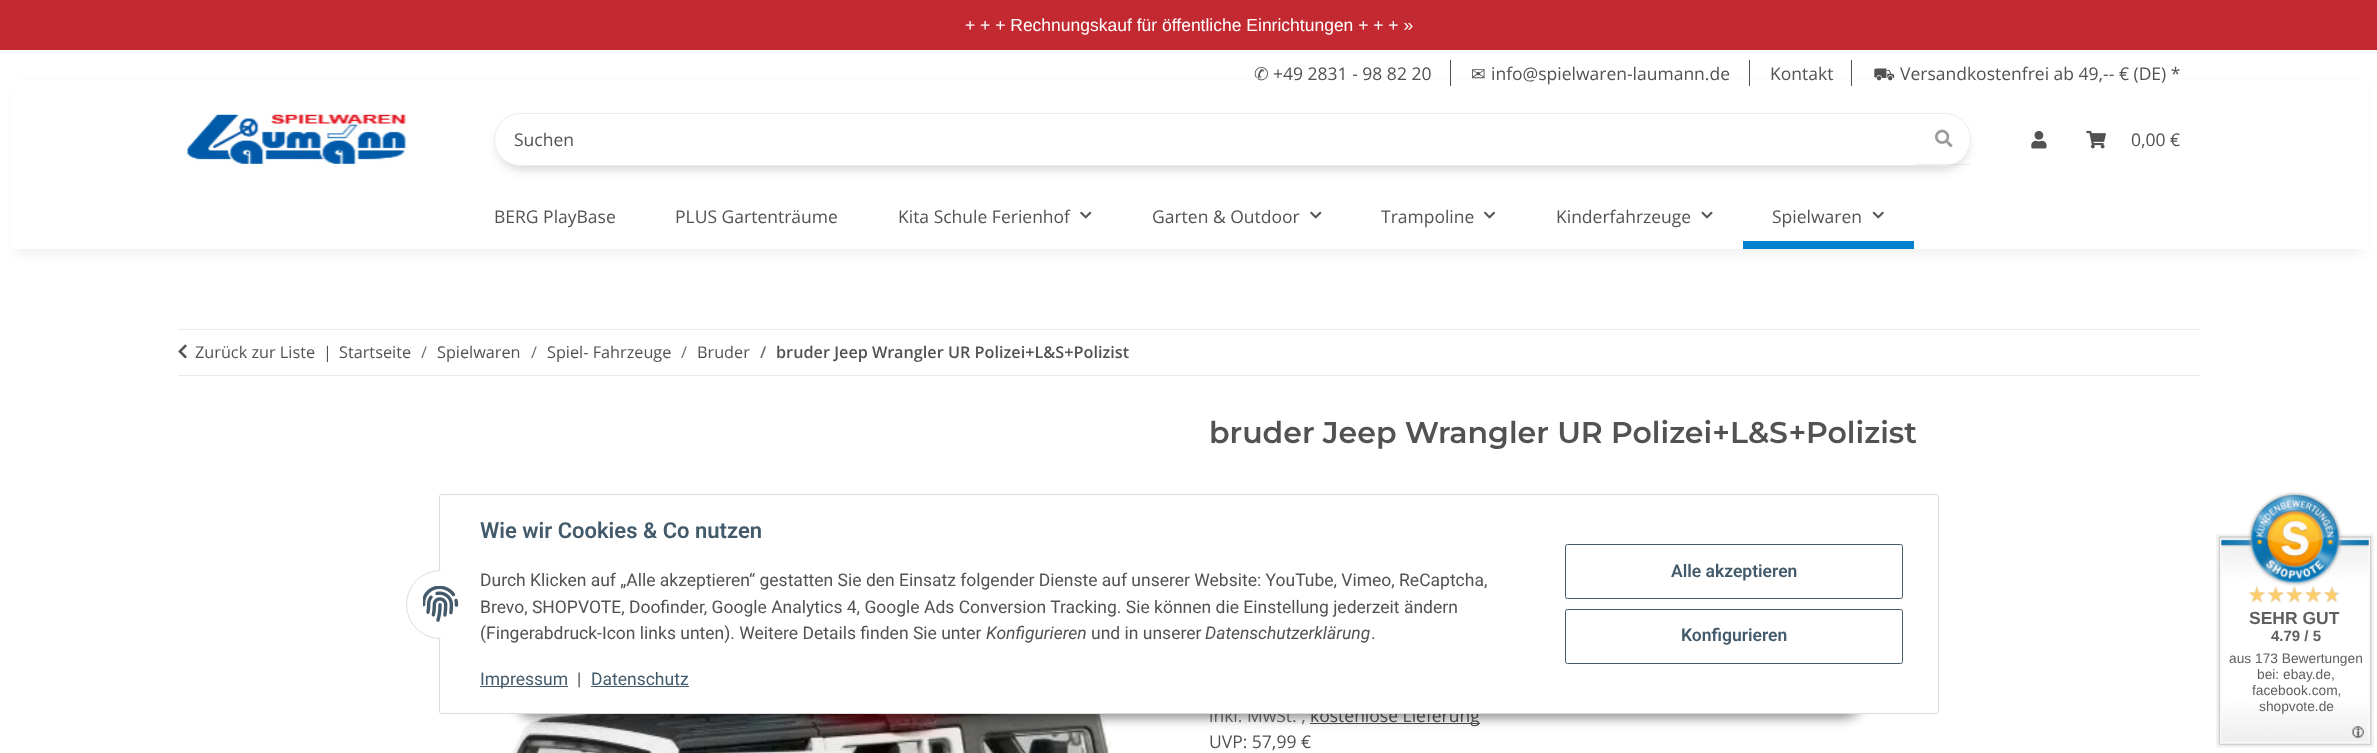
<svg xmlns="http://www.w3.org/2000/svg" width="2377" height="753">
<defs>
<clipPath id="clip1"><path d="M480 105h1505v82h-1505zm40.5 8h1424c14.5 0 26.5 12 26.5 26.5c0 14.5-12 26.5-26.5 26.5h-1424c-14.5 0-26.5-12-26.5-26.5c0-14.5 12-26.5 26.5-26.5z" clip-rule="evenodd"/></clipPath>
<clipPath id="clip2"><path d="M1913 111h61v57h-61zm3 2h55v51h-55z" clip-rule="evenodd"/></clipPath>
</defs>
<rect width="100%" height="100%" fill="#fff"/>
<rect width="2377" height="50" fill="#c32931"/>
<text x="965" y="31" style="font-family:Liberation Sans;font-size:17.5px;fill:#fff">+ + + Rechnungskauf für öffentliche Einrichtungen + + + »</text>
<rect x="15" y="85" width="2348" height="169" fill="#0000000f" filter="blur(5.5px)"/>
<rect x="10" y="80" width="2358" height="169" fill="#fff"/>
<text x="1254" y="80" style="font-family:DejaVu Sans;font-size:17.5px;fill:#525252">✆</text>
<text x="1273" y="80" style="font-family:Open Sans;font-size:17.5px;fill:#525252">+49 2831 - 98 82 20</text>
<rect x="1450" y="60" width="1" height="26" fill="#525252"/>
<text x="1471" y="80" style="font-family:DejaVu Sans;font-size:17.5px;fill:#525252">✉</text>
<text x="1491" y="80" style="font-family:Open Sans;font-size:17.5px;fill:#525252">info@spielwaren-laumann.de</text>
<rect x="1749" y="60" width="1" height="26" fill="#525252"/>
<text x="1770" y="80" style="font-family:Open Sans;font-size:17.5px;fill:#525252">Kontakt</text>
<rect x="1851" y="60" width="1" height="26" fill="#525252"/>
<text x="1873" y="80" style="font-family:STIX Two Math;font-size:17.5px;fill:#525252">⛟</text>
<text x="1900" y="80" style="font-family:Open Sans;font-size:17.5px;fill:#525252">Versandkostenfrei ab 49,-- € (DE) *</text>
<image x="187" y="114" width="219" height="50" href="media/1.png"/>
<g clip-path="url(#clip1)">
<rect x="499" y="124" width="1467" height="44" rx="22" fill="#00000033" filter="blur(6px)"/>
</g>
<rect x="494.5" y="113.5" width="1476" height="52" rx="26" fill="none" stroke="#ebebeb"/>
<text x="514" y="146" style="font-family:Open Sans;font-size:17.5px;fill:#525252">Suchen</text>
<g clip-path="url(#clip2)">
<rect x="1916" y="114" width="55" height="51" fill="#00000012" filter="blur(0.5px)"/>
</g>
<rect x="1916" y="113" width="31" height="1" fill="#ffffff26"/>
<image x="1935" y="129" width="18" height="19" href="media/2.png"/>
<image x="2031" y="130" width="16" height="19" href="media/3.png"/>
<image x="2086" y="130" width="20" height="19" href="media/4.png"/>
<text x="2131" y="146" style="font-family:Open Sans;font-size:17.5px;fill:#525252">0,00 €</text>
<text x="494" y="223" style="font-family:Open Sans;font-size:17.5px;fill:#525252">BERG PlayBase</text>
<text x="675" y="223" style="font-family:Open Sans;font-size:17.5px;fill:#525252">PLUS Gartenträume</text>
<text x="898" y="223" style="font-family:Open Sans;font-size:17.5px;fill:#525252">Kita Schule Ferienhof</text>
<image x="1080" y="211" width="12" height="8" href="media/5.png"/>
<text x="1152" y="223" style="font-family:Open Sans;font-size:17.5px;fill:#525252">Garten &amp; Outdoor</text>
<image x="1310" y="211" width="12" height="8" href="media/5.png"/>
<text x="1381" y="223" style="font-family:Open Sans;font-size:17.5px;fill:#525252">Trampoline</text>
<image x="1484" y="211" width="11" height="8" href="media/6.png"/>
<text x="1556" y="223" style="font-family:Open Sans;font-size:17.5px;fill:#525252">Kinderfahrzeuge</text>
<image x="1701" y="211" width="12" height="8" href="media/7.png"/>
<text x="1772" y="223" style="font-family:Open Sans;font-size:17.5px;fill:#525252">Spielwaren</text>
<image x="1872" y="211" width="12" height="8" href="media/8.png"/>
<rect x="1743" y="241" width="171" height="8" fill="#0081d0"/>
<rect x="178" y="329" width="2022" height="1" fill="#ebebeb"/>
<rect x="178" y="375" width="2022" height="1" fill="#ebebeb"/>
<image x="178" y="344" width="9" height="15" href="media/9.png"/>
<text x="195" y="358" style="font-family:Open Sans;font-size:16.25px;fill:#525252">Zurück zur Liste</text>
<text x="323" y="358" style="font-family:Open Sans;font-size:16.25px;fill:#525252">|</text>
<text x="339" y="358" style="font-family:Open Sans;font-size:16.25px;fill:#525252">Startseite</text>
<text x="421" y="358" style="font-family:Open Sans;font-size:16.25px;fill:#707070">/</text>
<text x="437" y="358" style="font-family:Open Sans;font-size:16.25px;fill:#525252">Spielwaren</text>
<text x="531" y="358" style="font-family:Open Sans;font-size:16.25px;fill:#707070">/</text>
<text x="547" y="358" style="font-family:Open Sans;font-size:16.25px;fill:#525252">Spiel- Fahrzeuge</text>
<text x="681" y="358" style="font-family:Open Sans;font-size:16.25px;fill:#707070">/</text>
<text x="697" y="358" style="font-family:Open Sans;font-size:16.25px;fill:#525252">Bruder</text>
<text x="760" y="358" style="font-family:Open Sans;font-size:16.25px;font-weight:600;fill:#707070">/</text>
<text x="776" y="358" style="font-family:Open Sans;font-size:16.25px;font-weight:600;fill:#525252">bruder Jeep Wrangler UR Polizei+L&amp;S+Polizist</text>
<image x="511" y="714" width="601" height="39" href="media/10.png"/>
<text x="1209" y="443" style="font-family:Montserrat;font-size:30px;font-weight:600;fill:#525252">bruder Jeep Wrangler UR Polizei+L&amp;S+Polizist</text>
<text x="1209" y="722" style="font-family:Open Sans;font-size:17.5px;fill:#707070">inkl. MwSt. ,</text>
<rect x="1310" y="723" width="170" height="1" fill="#525252"/>
<text x="1310" y="722" style="font-family:Open Sans;font-size:17.5px;fill:#525252">kostenlose Lieferung</text>
<text x="1209" y="748" style="font-family:Open Sans;font-size:17.5px;fill:#525252">UVP: 57,99 €</text>
<rect x="515" y="678" width="1348" height="40" rx="20" fill="#00000073" filter="blur(6px)"/>
<rect x="439.5" y="494.5" width="1499" height="219" rx="2" fill="#fff" stroke="#ddd"/>
<circle cx="440.5" cy="604.5" r="34" fill="#fff" stroke="#ddd"/>
<rect x="441" y="570" width="34" height="69" fill="#fff"/>
<image x="423" y="586" width="36" height="36" href="media/11.png"/>
<text x="480" y="538" style="font-family:Roboto;font-size:22px;font-weight:600;fill:#435a6b">Wie wir Cookies &amp; Co nutzen</text>
<text x="480" y="586" style="font-family:Roboto;font-size:17.5px;fill:#525252">Durch Klicken auf „Alle akzeptieren“ gestatten Sie den Einsatz folgender Dienste auf unserer Website: YouTube, Vimeo, ReCaptcha,</text>
<text x="480" y="613" style="font-family:Roboto;font-size:17.5px;fill:#525252">Brevo, SHOPVOTE, Doofinder, Google Analytics 4, Google Ads Conversion Tracking. Sie können die Einstellung jederzeit ändern</text>
<text x="480" y="639" style="font-family:Roboto;font-size:17.5px;fill:#525252">(Fingerabdruck-Icon links unten). Weitere Details finden Sie unter</text>
<text x="986" y="639" style="font-family:Roboto;font-size:17.5px;font-style:italic;fill:#525252">Konfigurieren</text>
<text x="1091" y="639" style="font-family:Roboto;font-size:17.5px;fill:#525252">und in unserer</text>
<text x="1205" y="639" style="font-family:Roboto;font-size:17.5px;font-style:italic;fill:#525252">Datenschutzerklärung</text>
<text x="1371" y="639" style="font-family:Roboto;font-size:17.5px;fill:#525252">.</text>
<rect x="480" y="686" width="88" height="1" fill="#435a6b"/>
<text x="480" y="685" style="font-family:Roboto;font-size:17.5px;fill:#435a6b">Impressum</text>
<text x="577" y="685" style="font-family:Roboto;font-size:17.5px;fill:#525252">|</text>
<text x="591" y="685" style="font-family:Roboto;font-size:17.5px;fill:#435a6b">Datenschutz</text>
<rect x="591" y="686" width="98" height="1" fill="#435a6b"/>
<rect x="1565.5" y="544.5" width="337" height="54" rx="2" fill="none" stroke="#435a6b"/>
<text x="1671" y="577" style="font-family:Roboto;font-size:17.5px;font-weight:600;fill:#435a6b">Alle akzeptieren</text>
<rect x="1565.5" y="609.5" width="337" height="54" rx="2" fill="none" stroke="#435a6b"/>
<text x="1681" y="641" style="font-family:Roboto;font-size:17.5px;font-weight:600;fill:#435a6b">Konfigurieren</text>
<image x="2216" y="491" width="158" height="257" href="media/12.png"/>
<image x="2248" y="586" width="89" height="17" href="media/13.png"/>
<text x="2249" y="624" style="font-family:Liberation Sans;font-size:17.5px;font-weight:bold;fill:#606060">SEHR GUT</text>
<text x="2271" y="641" style="font-family:Liberation Sans;font-size:15px;font-weight:bold;fill:#606060">4.79 / 5</text>
<text x="2229" y="663" style="font-family:Liberation Sans;font-size:13.75px;fill:#606060">aus 173 Bewertungen</text>
<text x="2257" y="679" style="font-family:Liberation Sans;font-size:13.75px;fill:#606060">bei: ebay.de,</text>
<text x="2252" y="695" style="font-family:Liberation Sans;font-size:13.75px;fill:#606060">facebook.com,</text>
<text x="2259" y="711" style="font-family:Liberation Sans;font-size:13.75px;fill:#606060">shopvote.de</text>
</svg>
